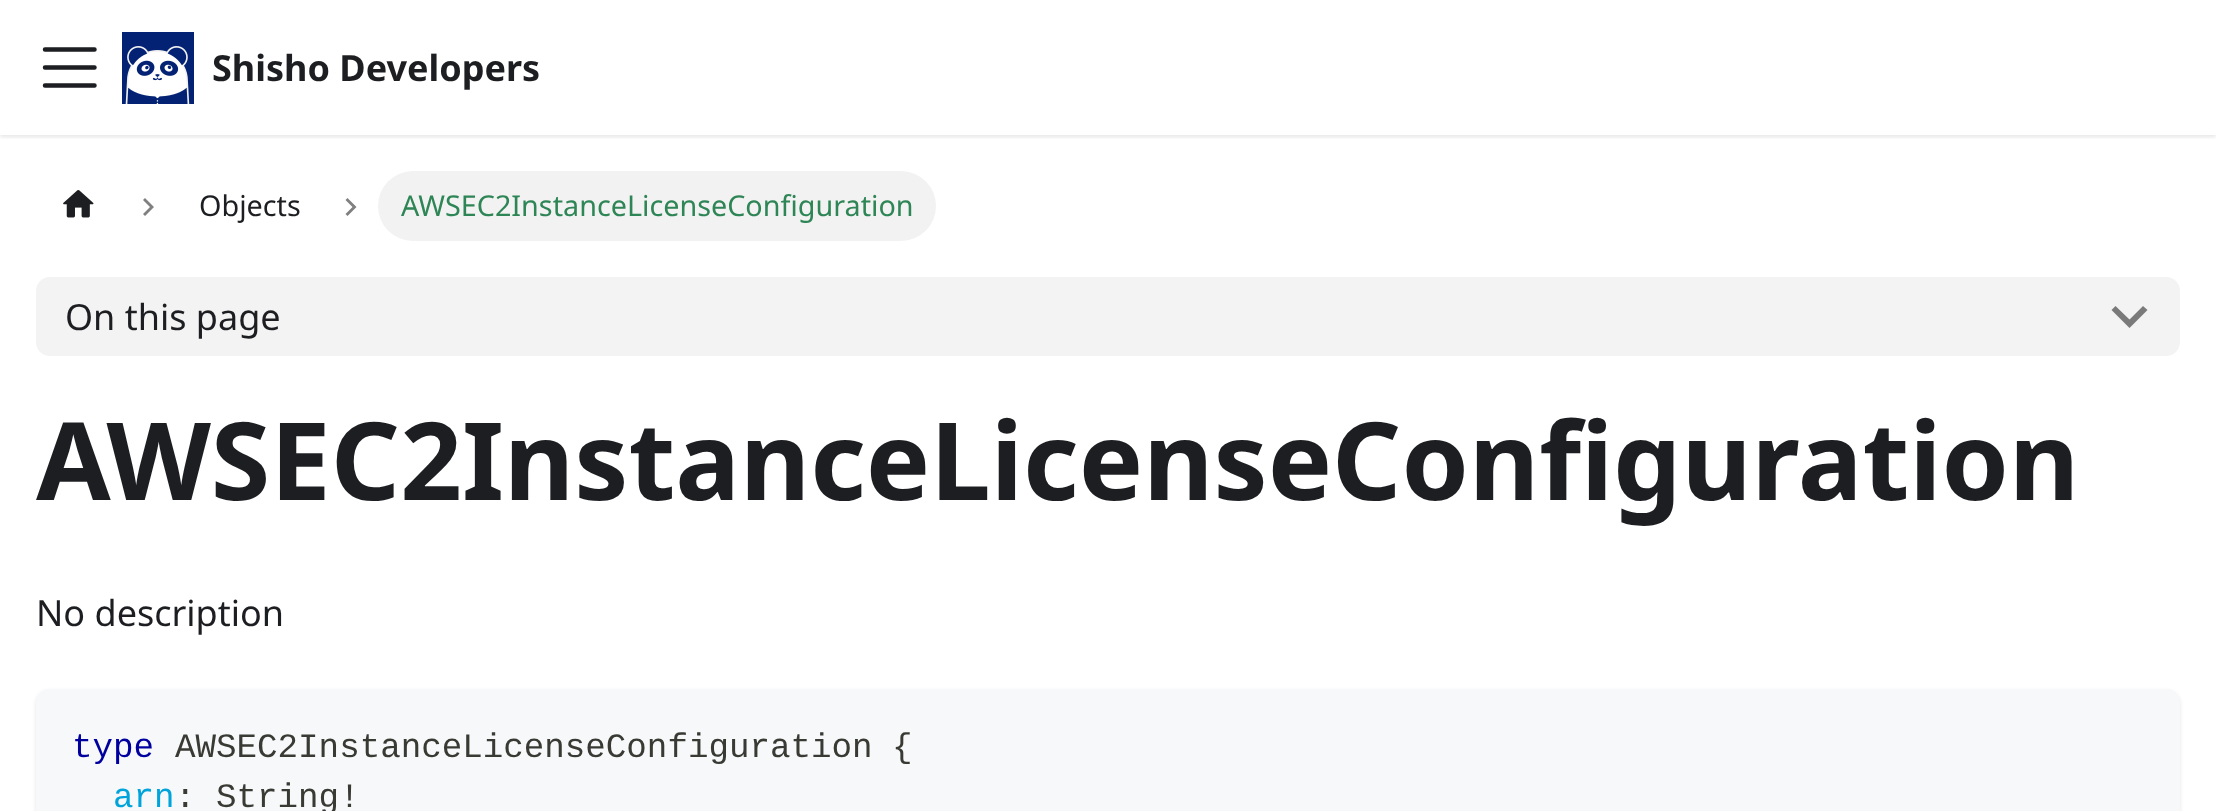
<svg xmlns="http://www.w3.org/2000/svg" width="2216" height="811">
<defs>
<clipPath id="clip1"><rect x="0" y="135" width="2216" height="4"/></clipPath>
</defs>
<rect width="100%" height="100%" fill="#fff"/>
<g clip-path="url(#clip1)">
<rect y="2" width="2216" height="135" fill="#0000001a" filter="blur(2px)"/>
</g>
<path d="M45 49.5h49.5m-49.5 18h49.5m-49.5 18h49.5" fill="none" stroke="#1c1e21" stroke-width="4.5" stroke-linecap="round"/>
<image x="122" y="32" width="72" height="72" href="media/1.png"/>
<text x="212" y="81" style="font-family:Noto Sans;font-size:36px;font-weight:bold;fill:#1c1e21">Shisho Developers</text>
<image x="63" y="190" width="31" height="28" href="media/2.png"/>
<path d="M145 198l-2 2l7 7l-7 7l2 2l9-9z" fill="#808080"/>
<text x="199" y="216" style="font-family:Noto Sans;font-size:28.75px;fill:#1c1e21">Objects</text>
<path d="M347.5 198l-2 2l7 7l-7 7l2 2l9-9z" fill="#808080"/>
<rect x="378" y="171" width="558" height="70" rx="35" fill="#f2f2f2"/>
<text x="401" y="216" style="font-family:Noto Sans;font-size:28.75px;fill:#2e8555">AWSEC2InstanceLicenseConfiguration</text>
<rect x="36" y="277" width="2144" height="79" rx="14" fill="#f3f3f3"/>
<text x="65" y="330" style="font-family:Noto Sans;font-size:36px;fill:#1c1e21">On this page</text>
<path d="M2143 306l-13.5 13.5l-14-13.5l-4 4l18 18l18-18z" fill="#7a7a7a"/>
<text x="36" y="500" style="font-family:Noto Sans;font-size:108px;font-weight:bold;fill:#1c1e21">AWSEC2InstanceLicenseConfiguration</text>
<text x="36" y="626" style="font-family:Noto Sans;font-size:36px;fill:#1c1e21">No description</text>
<rect x="36" y="691" width="2144" height="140" rx="14" fill="#0000001a" filter="blur(2px)"/>
<rect x="36" y="689" width="2144" height="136" rx="14" fill="#f6f8fa"/>
<text x="72" y="757" style="font-family:Liberation Mono;font-size:34.2px;fill:#00009f">type</text>
<text x="175" y="757" style="font-family:Liberation Mono;font-size:34.2px;fill:#393a34">AWSEC2InstanceLicenseConfiguration</text>
<text x="892" y="757" style="font-family:Liberation Mono;font-size:34.2px;fill:#393a34">{</text>
<text x="113" y="807" style="font-family:Liberation Mono;font-size:34.2px;fill:#00a4db">arn</text>
<text x="175" y="807" style="font-family:Liberation Mono;font-size:34.2px;fill:#393a34">: String!</text>
</svg>
